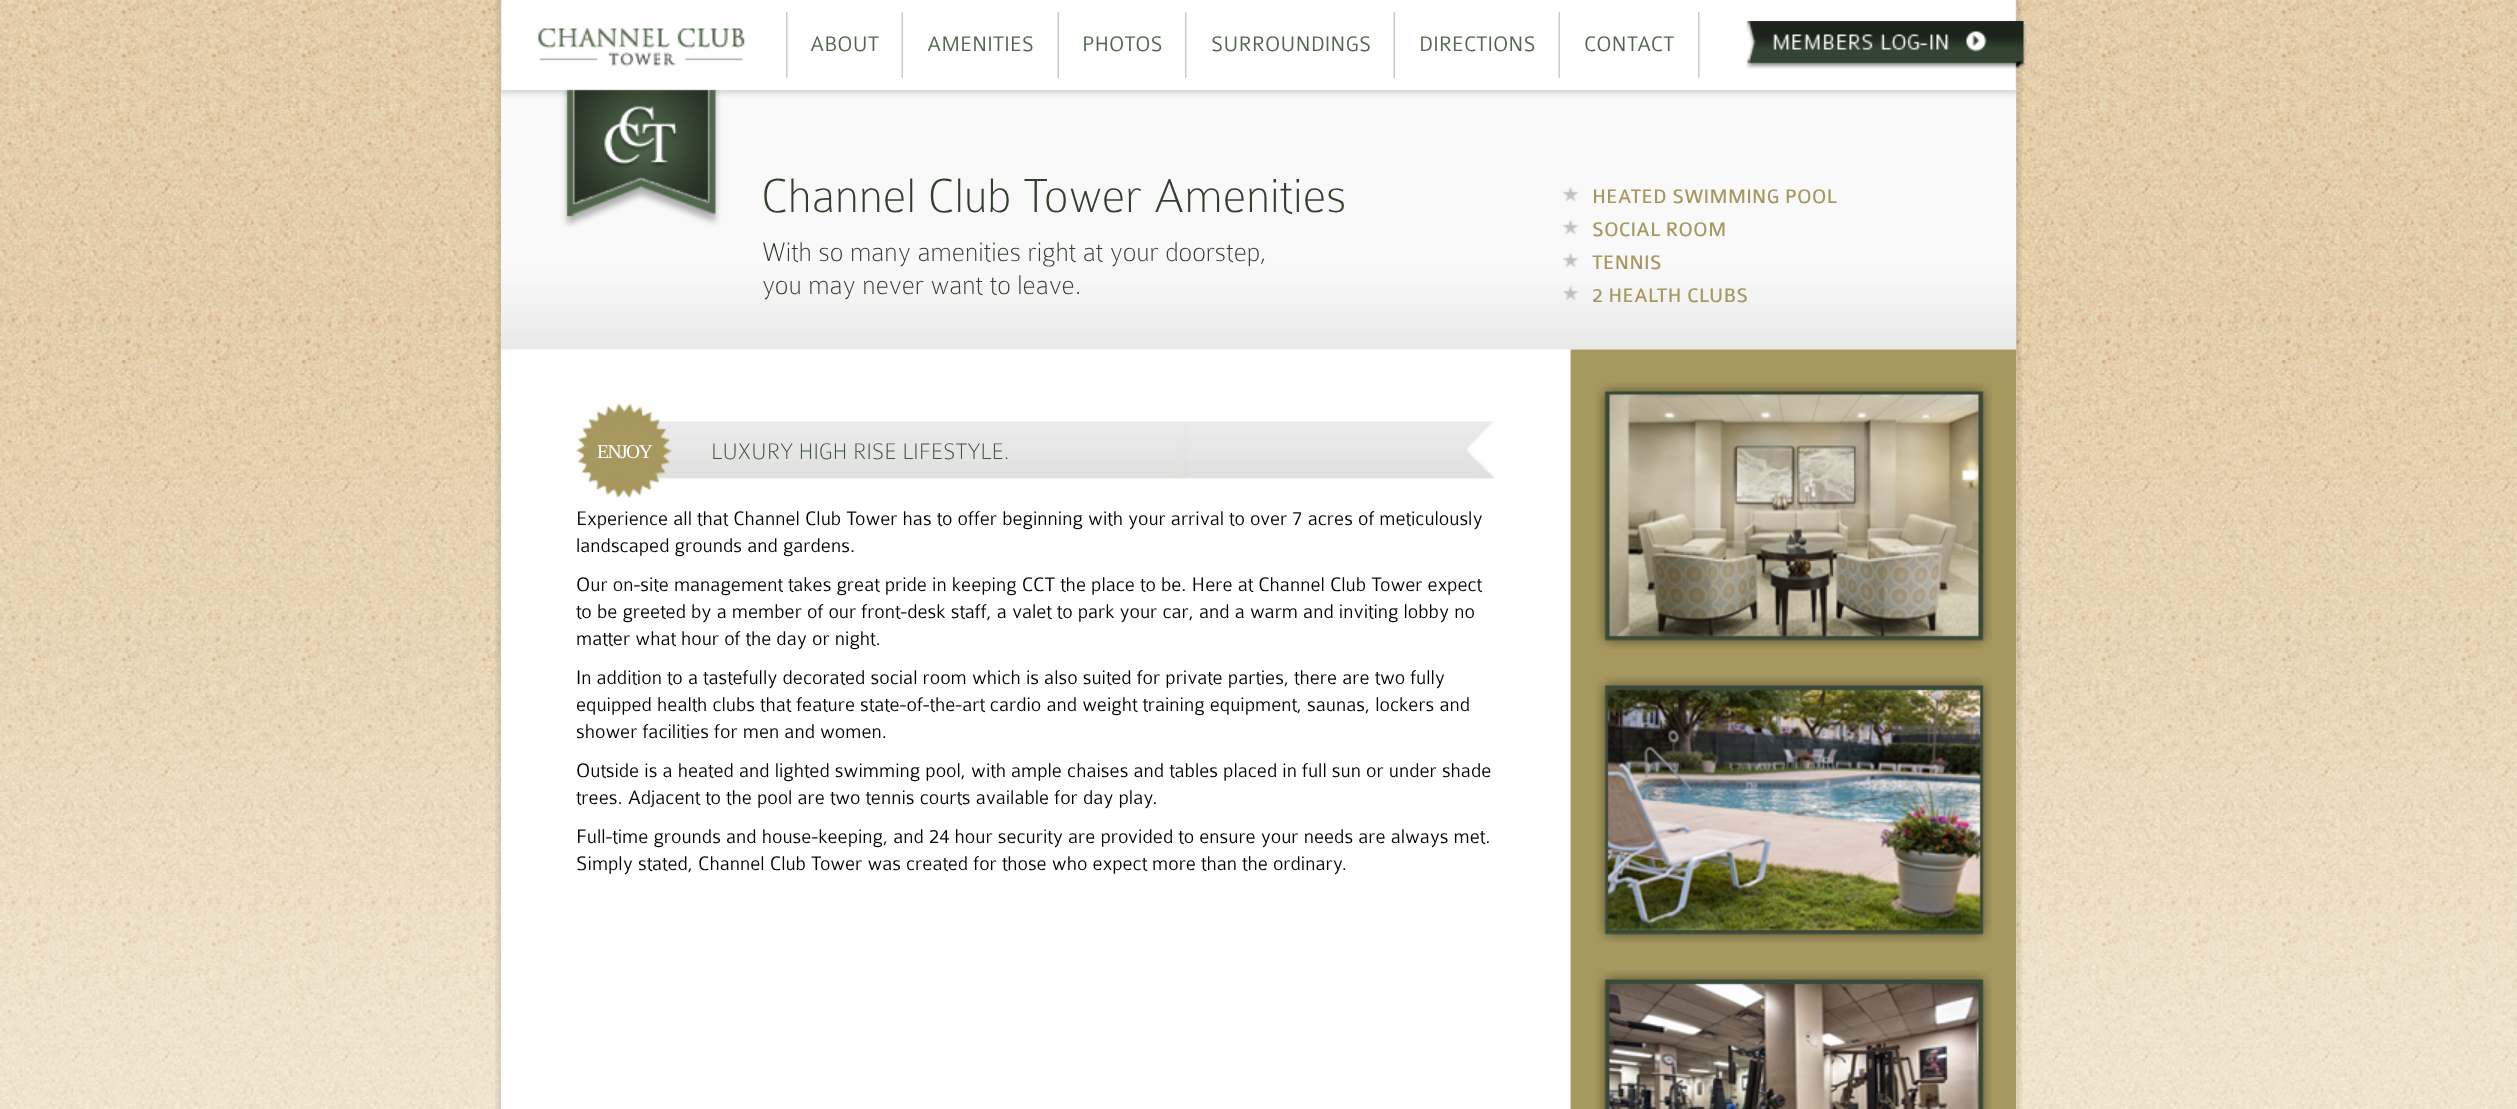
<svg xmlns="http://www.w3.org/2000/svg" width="2517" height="1109">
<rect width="100%" height="100%" fill="#fff"/>
<image x="0" y="0" width="2517" height="1109" href="media/1.png"/>
<image x="495" y="0" width="1527" height="1109" href="media/2.png"/>
<image x="501" y="90" width="1515" height="260" href="media/7.png"/>
<image x="538" y="28" width="208" height="199" href="media/3.png"/>
<image x="786" y="12" width="2" height="66" href="media/4.png"/>
<image x="901" y="12" width="2" height="66" href="media/5.png"/>
<text x="810" y="51" style="font-family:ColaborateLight;font-size:22.5px;font-weight:300;fill:#51674c">ABOUT</text>
<image x="1057" y="12" width="2" height="66" href="media/5.png"/>
<text x="927" y="51" style="font-family:ColaborateLight;font-size:22.5px;font-weight:300;fill:#51674c">AMENITIES</text>
<image x="1185" y="12" width="2" height="66" href="media/4.png"/>
<text x="1082" y="51" style="font-family:ColaborateLight;font-size:22.5px;font-weight:300;fill:#51674c">PHOTOS</text>
<image x="1393" y="12" width="2" height="66" href="media/5.png"/>
<text x="1211" y="51" style="font-family:ColaborateLight;font-size:22.5px;font-weight:300;fill:#51674c">SURROUNDINGS</text>
<image x="1558" y="12" width="2" height="66" href="media/5.png"/>
<text x="1419" y="51" style="font-family:ColaborateLight;font-size:22.5px;font-weight:300;fill:#51674c">DIRECTIONS</text>
<image x="1698" y="12" width="2" height="66" href="media/4.png"/>
<text x="1584" y="51" style="font-family:ColaborateLight;font-size:22.5px;font-weight:300;fill:#51674c">CONTACT</text>
<image x="1745" y="21" width="282" height="48" href="media/6.png"/>
<text x="761" y="212" style="font-family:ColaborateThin;font-size:51px;font-weight:100;fill:#323f2f">Channel Club Tower Amenities</text>
<text x="762" y="261" style="font-family:ColaborateThin;font-size:28.5px;font-weight:100;fill:#323f2f">With so many amenities right at your doorstep,</text>
<text x="762" y="294" style="font-family:ColaborateThin;font-size:28.5px;font-weight:100;fill:#323f2f">you may never want to leave.</text>
<image x="1562" y="187" width="17" height="15" href="media/8.png"/>
<text x="1592" y="203" style="font-family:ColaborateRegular;font-size:21px;fill:#a7985f">HEATED SWIMMING POOL</text>
<image x="1562" y="220" width="17" height="15" href="media/8.png"/>
<text x="1592" y="236" style="font-family:ColaborateRegular;font-size:21px;fill:#a7985f">SOCIAL ROOM</text>
<image x="1562" y="253" width="17" height="15" href="media/8.png"/>
<text x="1592" y="269" style="font-family:ColaborateRegular;font-size:21px;fill:#a7985f">TENNIS</text>
<image x="1562" y="286" width="17" height="15" href="media/9.png"/>
<text x="1592" y="302" style="font-family:ColaborateRegular;font-size:21px;fill:#a7985f">2 HEALTH CLUBS</text>
<image x="501" y="349" width="1515" height="760" href="media/10.png"/>
<image x="649" y="421" width="846" height="58" href="media/12.png"/>
<image x="576" y="403" width="96" height="96" href="media/11.png"/>
<text x="597" y="458" style="font-family:Liberation Serif;font-size:19.5px;letter-spacing:-1.5px;fill:#fff">ENJOY</text>
<text x="711" y="459" style="font-family:ColaborateThin;font-size:24px;font-weight:100;fill:#41543f">LUXURY HIGH RISE LIFESTYLE.</text>
<text x="576" y="525" style="font-family:ColaborateLight;font-size:21px;font-weight:300;fill:#000">Experience all that Channel Club Tower has to offer beginning with your arrival to over 7 acres of meticulously</text>
<text x="576" y="552" style="font-family:ColaborateLight;font-size:21px;font-weight:300;fill:#000">landscaped grounds and gardens.</text>
<text x="576" y="591" style="font-family:ColaborateLight;font-size:21px;font-weight:300;fill:#000">Our on-site management takes great pride in keeping CCT the place to be. Here at Channel Club Tower expect</text>
<text x="576" y="618" style="font-family:ColaborateLight;font-size:21px;font-weight:300;fill:#000">to be greeted by a member of our front-desk staff, a valet to park your car, and a warm and inviting lobby no</text>
<text x="576" y="645" style="font-family:ColaborateLight;font-size:21px;font-weight:300;fill:#000">matter what hour of the day or night.</text>
<text x="576" y="684" style="font-family:ColaborateLight;font-size:21px;font-weight:300;fill:#000">In addition to a tastefully decorated social room which is also suited for private parties, there are two fully</text>
<text x="576" y="711" style="font-family:ColaborateLight;font-size:21px;font-weight:300;fill:#000">equipped health clubs that feature state-of-the-art cardio and weight training equipment, saunas, lockers and</text>
<text x="576" y="738" style="font-family:ColaborateLight;font-size:21px;font-weight:300;fill:#000">shower facilities for men and women.</text>
<text x="576" y="777" style="font-family:ColaborateLight;font-size:21px;font-weight:300;fill:#000">Outside is a heated and lighted swimming pool, with ample chaises and tables placed in full sun or under shade</text>
<text x="576" y="804" style="font-family:ColaborateLight;font-size:21px;font-weight:300;fill:#000">trees. Adjacent to the pool are two tennis courts available for day play.</text>
<text x="576" y="843" style="font-family:ColaborateLight;font-size:21px;font-weight:300;fill:#000">Full-time grounds and house-keeping, and 24 hour security are provided to ensure your needs are always met.</text>
<text x="576" y="870" style="font-family:ColaborateLight;font-size:21px;font-weight:300;fill:#000">Simply stated, Channel Club Tower was created for those who expect more than the ordinary.</text>
<image x="1596" y="382" width="396" height="267" href="media/13.png"/>
<image x="1596" y="676" width="396" height="267" href="media/14.png"/>
<image x="1596" y="970" width="396" height="139" href="media/15.png"/>
</svg>
